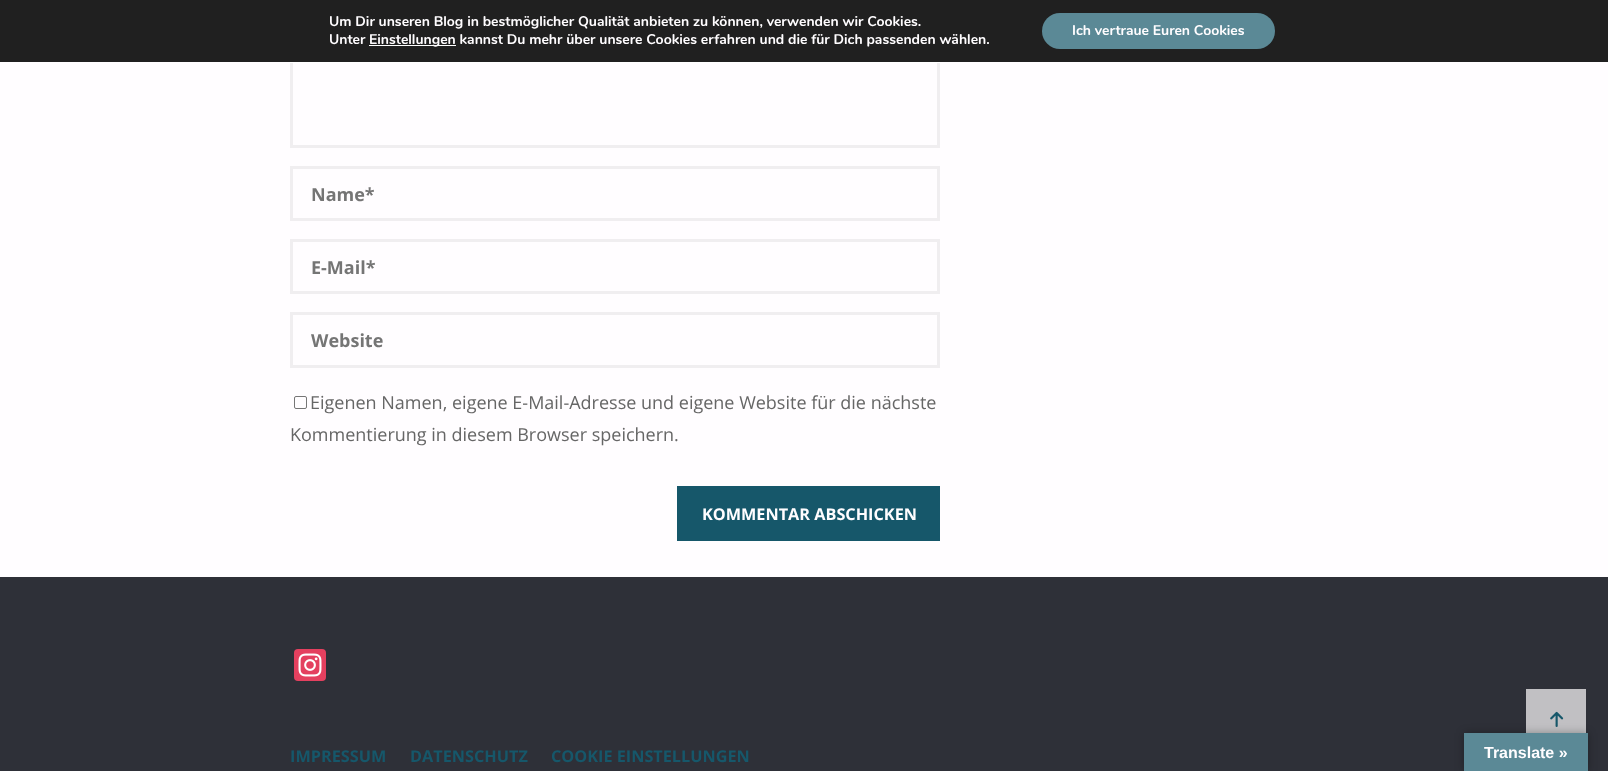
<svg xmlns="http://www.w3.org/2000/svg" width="1608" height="771">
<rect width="100%" height="100%" fill="#fffdff"/>
<rect x="291.5" y="-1.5" width="647" height="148" fill="none" stroke="#f0eef0" stroke-width="3"/>
<rect width="1608" height="62" fill="#202020"/>
<rect x="290" y="62" width="650" height="1" fill="#fff"/>
<text x="329" y="26" style="font-family:Nunito;font-size:14px;font-weight:bold;fill:#fffdff">Um Dir unseren Blog in bestmöglicher Qualität anbieten zu können, verwenden wir Cookies.</text>
<text x="329" y="44" style="font-family:Nunito;font-size:14px;font-weight:bold;fill:#fffdff">Unter</text>
<rect x="369" y="45" width="87" height="1" fill="#fff"/>
<text x="369" y="44" style="font-family:Nunito;font-size:14px;font-weight:bold;fill:#fffdff">Einstellungen kannst Du mehr über unsere Cookies erfahren und die für Dich passenden wählen.</text>
<rect x="1042" y="13" width="233" height="36" rx="18" fill="#5b8996"/>
<text x="1072" y="35" style="font-family:Nunito;font-size:14px;font-weight:bold;fill:#fffdff">Ich vertraue Euren Cookies</text>
<rect x="291.5" y="167.5" width="647" height="52" fill="none" stroke="#f0eef0" stroke-width="3"/>
<text x="311" y="201" style="font-family:Open Sans;font-size:18px;font-weight:bold;fill:#757575">Name*</text>
<rect x="291.5" y="240.5" width="647" height="52" fill="none" stroke="#f0eef0" stroke-width="3"/>
<text x="311" y="274" style="font-family:Open Sans;font-size:18px;font-weight:bold;fill:#757575">E-Mail*</text>
<rect x="291.5" y="313.5" width="647" height="53" fill="none" stroke="#f0eef0" stroke-width="3"/>
<text x="311" y="347" style="font-family:Open Sans;font-size:18px;font-weight:bold;fill:#757575">Website</text>
<rect x="294.5" y="396.5" width="12" height="12" rx="1.5" fill="none" stroke="#767676"/>
<text x="310" y="409" style="font-family:Open Sans;font-size:18px;fill:#666">Eigenen Namen, eigene E-Mail-Adresse und eigene Website für die nächste</text>
<text x="290" y="441" style="font-family:Open Sans;font-size:18px;fill:#666">Kommentierung in diesem Browser speichern.</text>
<rect x="677" y="486" width="263" height="55" fill="#16576a"/>
<text x="702" y="520" style="font-family:Open Sans;font-size:16.25px;font-weight:bold;fill:#fffdff">KOMMENTAR ABSCHICKEN</text>
<rect y="577" width="1608" height="194" fill="#2e3038"/>
<rect x="294" y="649" width="32" height="32" rx="4" fill="#e4405f"/>
<image x="298" y="653" width="24" height="24" href="media/1.png"/>
<rect x="1526" y="689" width="60" height="44" fill="#c1c0c3"/>
<image x="1550" y="711" width="14" height="16" href="media/2.png"/>
<text x="290" y="762" style="font-family:Open Sans;font-size:16.25px;font-weight:bold;fill:#16576a">IMPRESSUM</text>
<text x="410" y="762" style="font-family:Open Sans;font-size:16.25px;font-weight:bold;fill:#16576a">DATENSCHUTZ</text>
<text x="551" y="762" style="font-family:Open Sans;font-size:16.25px;font-weight:bold;fill:#16576a">COOKIE EINSTELLUNGEN</text>
<rect x="1464" y="733" width="124" height="38" fill="#0000004d" filter="blur(4.5px)"/>
<rect x="1464" y="733" width="124" height="38" fill="#5b8996"/>
<text x="1484" y="758" style="font-family:Liberation Sans;font-size:16px;font-weight:bold;fill:#fffdff">Translate »</text>
</svg>
